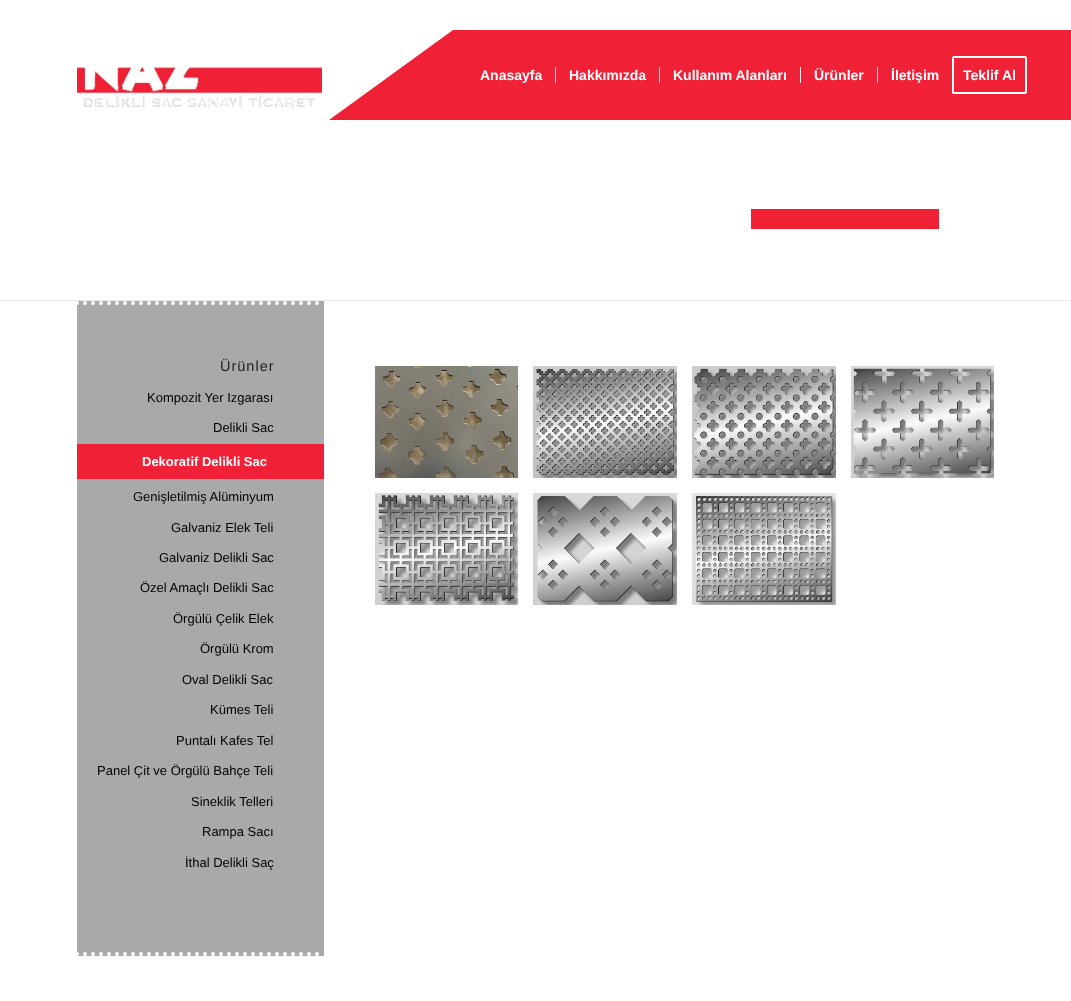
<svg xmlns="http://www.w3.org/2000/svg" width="1071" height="1001">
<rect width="100%" height="100%" fill="#fff"/>
<image x="77" y="66" width="245" height="41" href="media/1.png"/>
<path d="M453 30l-124 90h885v-90z" fill="#f02036"/>
<text x="480" y="80" style="font-family:Arimo;font-size:14px;font-weight:bold;fill:#fff">Anasayfa</text>
<text x="569" y="80" style="font-family:Arimo;font-size:14px;font-weight:bold;fill:#fff">Hakkımızda</text>
<rect x="555" y="67" width="1" height="16" fill="#ebebeb"/>
<text x="673" y="80" style="font-family:Arimo;font-size:14px;font-weight:bold;fill:#fff">Kullanım Alanları</text>
<rect x="659" y="67" width="1" height="16" fill="#ebebeb"/>
<text x="814" y="80" style="font-family:Arimo;font-size:14px;font-weight:bold;fill:#fff">Ürünler</text>
<rect x="800" y="67" width="1" height="16" fill="#ebebeb"/>
<text x="891" y="80" style="font-family:Arimo;font-size:14px;font-weight:bold;fill:#fff">İletişim</text>
<rect x="877" y="67" width="1" height="16" fill="#ebebeb"/>
<rect x="953" y="57" width="73" height="36" rx="1" fill="none" stroke="#fff" stroke-width="2"/>
<text x="963" y="80" style="font-family:Arimo;font-size:14px;font-weight:bold;fill:#fff">Teklif Al</text>
<rect x="751" y="209" width="188" height="20" fill="#f02035"/>
<rect y="300" width="1071" height="1" fill="#ebebeb"/>
<rect x="77" y="301" width="247" height="655" fill="#a9a9a9"/>
<path d="M77 303h248" fill="none" stroke="#fff" stroke-width="4" stroke-linecap="round" stroke-dasharray="0 8"/>
<path d="M77 954h248" fill="none" stroke="#fff" stroke-width="4" stroke-linecap="round" stroke-dasharray="0 8"/>
<text x="220" y="371" style="font-family:Liberation Sans;font-size:14.5px;letter-spacing:1px;fill:#222">Ürünler</text>
<text x="147" y="402" style="font-family:Arimo;font-size:13px;fill:#000">Kompozit Yer Izgarası</text>
<text x="213" y="432" style="font-family:Arimo;font-size:13px;fill:#000">Delikli Sac</text>
<rect x="77" y="444" width="247" height="35" fill="#f02036"/>
<text x="142" y="466" style="font-family:Arimo;font-size:13px;font-weight:bold;fill:#fff">Dekoratif Delikli Sac</text>
<text x="133" y="501" style="font-family:Arimo;font-size:13px;fill:#000">Genişletilmiş Alüminyum</text>
<text x="171" y="532" style="font-family:Arimo;font-size:13px;fill:#000">Galvaniz Elek Teli</text>
<text x="159" y="562" style="font-family:Arimo;font-size:13px;fill:#000">Galvaniz Delikli Sac</text>
<text x="140" y="592" style="font-family:Arimo;font-size:13px;fill:#000">Özel Amaçlı Delikli Sac</text>
<text x="173" y="623" style="font-family:Arimo;font-size:13px;fill:#000">Örgülü Çelik Elek</text>
<text x="200" y="653" style="font-family:Arimo;font-size:13px;fill:#000">Örgülü Krom</text>
<text x="182" y="684" style="font-family:Arimo;font-size:13px;fill:#000">Oval Delikli Sac</text>
<text x="210" y="714" style="font-family:Arimo;font-size:13px;fill:#000">Kümes Teli</text>
<text x="176" y="745" style="font-family:Arimo;font-size:13px;fill:#000">Puntalı Kafes Tel</text>
<text x="97" y="775" style="font-family:Arimo;font-size:13px;fill:#000">Panel Çit ve Örgülü Bahçe Teli</text>
<text x="191" y="806" style="font-family:Arimo;font-size:13px;fill:#000">Sineklik Telleri</text>
<text x="202" y="836" style="font-family:Arimo;font-size:13px;fill:#000">Rampa Sacı</text>
<text x="185" y="867" style="font-family:Arimo;font-size:13px;fill:#000">İthal Delikli Saç</text>
<image x="375" y="366" width="143" height="112" href="media/2.png"/>
<image x="533" y="366" width="144" height="112" href="media/3.png"/>
<image x="692" y="366" width="144" height="112" href="media/4.png"/>
<image x="851" y="366" width="143" height="112" href="media/5.png"/>
<image x="375" y="493" width="143" height="112" href="media/6.png"/>
<image x="533" y="493" width="144" height="112" href="media/7.png"/>
<image x="692" y="493" width="144" height="112" href="media/8.png"/>
</svg>
